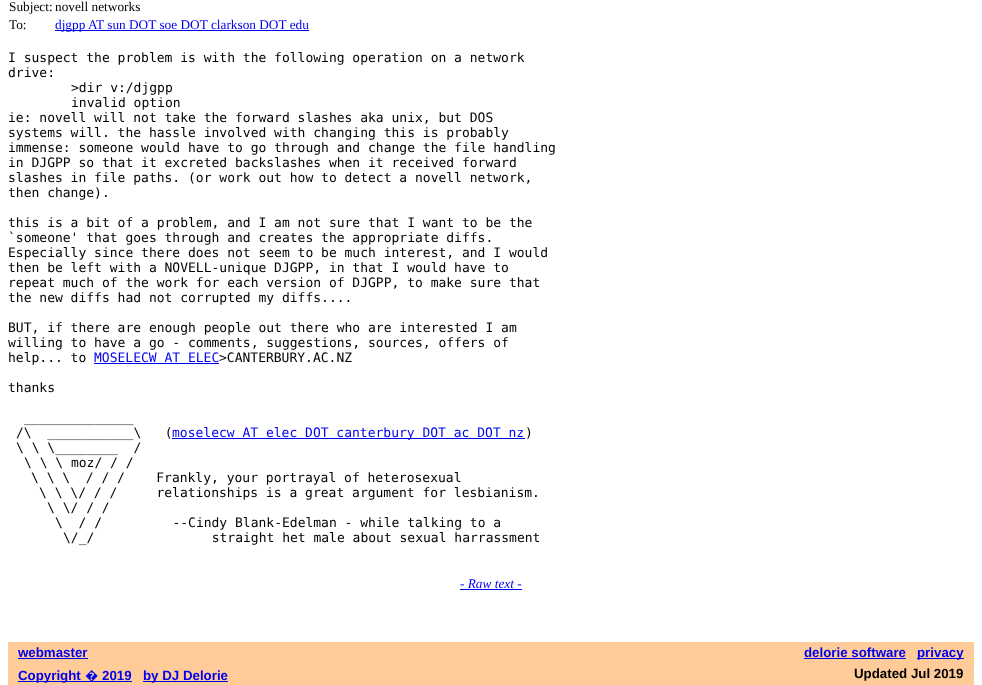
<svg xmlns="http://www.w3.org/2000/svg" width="982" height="685">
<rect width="100%" height="100%" fill="#fff"/>
<text x="9" y="11" style="font-family:Liberation Serif;font-size:13.3px;fill:#000">Subject:</text>
<text x="55" y="11" style="font-family:Liberation Serif;font-size:13.3px;fill:#000">novell networks</text>
<text x="9" y="29" style="font-family:Liberation Serif;font-size:13.3px;fill:#000">To:</text>
<rect x="55" y="30" width="254" height="1" fill="#00e"/>
<text x="55" y="29" style="font-family:Liberation Serif;font-size:13.3px;fill:#00e">djgpp AT sun DOT soe DOT clarkson DOT edu</text>
<text x="8" y="62" style="font-family:DejaVu Sans Mono;font-size:13px;fill:#000">I suspect the problem is with the following operation on a network</text>
<text x="8" y="77" style="font-family:DejaVu Sans Mono;font-size:13px;fill:#000">drive:</text>
<text x="71" y="92" style="font-family:DejaVu Sans Mono;font-size:13px;fill:#000">&gt;dir v:/djgpp</text>
<text x="71" y="107" style="font-family:DejaVu Sans Mono;font-size:13px;fill:#000">invalid option</text>
<text x="8" y="122" style="font-family:DejaVu Sans Mono;font-size:13px;fill:#000">ie: novell will not take the forward slashes aka unix, but DOS</text>
<text x="8" y="137" style="font-family:DejaVu Sans Mono;font-size:13px;fill:#000">systems will. the hassle involved with changing this is probably</text>
<text x="8" y="152" style="font-family:DejaVu Sans Mono;font-size:13px;fill:#000">immense: someone would have to go through and change the file handling</text>
<text x="8" y="167" style="font-family:DejaVu Sans Mono;font-size:13px;fill:#000">in DJGPP so that it excreted backslashes when it received forward</text>
<text x="8" y="182" style="font-family:DejaVu Sans Mono;font-size:13px;fill:#000">slashes in file paths. (or work out how to detect a novell network,</text>
<text x="8" y="197" style="font-family:DejaVu Sans Mono;font-size:13px;fill:#000">then change).</text>
<text x="8" y="227" style="font-family:DejaVu Sans Mono;font-size:13px;fill:#000">this is a bit of a problem, and I am not sure that I want to be the</text>
<text x="8" y="242" style="font-family:DejaVu Sans Mono;font-size:13px;fill:#000">`someone' that goes through and creates the appropriate diffs.</text>
<text x="8" y="257" style="font-family:DejaVu Sans Mono;font-size:13px;fill:#000">Especially since there does not seem to be much interest, and I would</text>
<text x="8" y="272" style="font-family:DejaVu Sans Mono;font-size:13px;fill:#000">then be left with a NOVELL-unique DJGPP, in that I would have to</text>
<text x="8" y="287" style="font-family:DejaVu Sans Mono;font-size:13px;fill:#000">repeat much of the work for each version of DJGPP, to make sure that</text>
<text x="8" y="302" style="font-family:DejaVu Sans Mono;font-size:13px;fill:#000">the new diffs had not corrupted my diffs....</text>
<text x="8" y="332" style="font-family:DejaVu Sans Mono;font-size:13px;fill:#000">BUT, if there are enough people out there who are interested I am</text>
<text x="8" y="347" style="font-family:DejaVu Sans Mono;font-size:13px;fill:#000">willing to have a go - comments, suggestions, sources, offers of</text>
<text x="8" y="362" style="font-family:DejaVu Sans Mono;font-size:13px;fill:#000">help... to</text>
<text x="94" y="362" style="font-family:DejaVu Sans Mono;font-size:13px;fill:#00e">MOSELECW AT ELEC</text>
<rect x="94" y="363" width="125" height="1" fill="#00e"/>
<text x="219" y="362" style="font-family:DejaVu Sans Mono;font-size:13px;fill:#000">&gt;CANTERBURY.AC.NZ</text>
<text x="8" y="392" style="font-family:DejaVu Sans Mono;font-size:13px;fill:#000">thanks</text>
<text x="24" y="422" style="font-family:DejaVu Sans Mono;font-size:13px;fill:#000">______________</text>
<text x="16" y="437" style="font-family:DejaVu Sans Mono;font-size:13px;fill:#000" xml:space="preserve">/\  ___________\   (</text>
<rect x="172" y="438" width="353" height="1" fill="#00e"/>
<text x="172" y="437" style="font-family:DejaVu Sans Mono;font-size:13px;fill:#00e">moselecw AT elec DOT canterbury DOT ac DOT nz</text>
<text x="525" y="437" style="font-family:DejaVu Sans Mono;font-size:13px;fill:#000">)</text>
<text x="16" y="452" style="font-family:DejaVu Sans Mono;font-size:13px;fill:#000" xml:space="preserve">\ \ \________  /</text>
<text x="24" y="467" style="font-family:DejaVu Sans Mono;font-size:13px;fill:#000">\ \ \ moz/ / /</text>
<text x="31" y="482" style="font-family:DejaVu Sans Mono;font-size:13px;fill:#000" xml:space="preserve">\ \ \  / / /    Frankly, your portrayal of heterosexual</text>
<text x="39" y="497" style="font-family:DejaVu Sans Mono;font-size:13px;fill:#000" xml:space="preserve">\ \ \/ / /     relationships is a great argument for lesbianism.</text>
<text x="47" y="512" style="font-family:DejaVu Sans Mono;font-size:13px;fill:#000">\ \/ / /</text>
<text x="55" y="527" style="font-family:DejaVu Sans Mono;font-size:13px;fill:#000" xml:space="preserve">\  / /         --Cindy Blank-Edelman - while talking to a</text>
<text x="63" y="542" style="font-family:DejaVu Sans Mono;font-size:13px;fill:#000" xml:space="preserve">\/_/               straight het male about sexual harrassment</text>
<text x="460" y="588" style="font-family:Liberation Serif;font-size:13.3px;font-style:italic;fill:#00e">- Raw text -</text>
<rect x="460" y="589" width="62" height="1" fill="#00e"/>
<rect x="8" y="642" width="966" height="21" fill="#fc9"/>
<text x="18" y="657" style="font-family:Liberation Sans;font-size:13.3px;font-weight:bold;fill:#00e">webmaster</text>
<rect x="18" y="658" width="70" height="1" fill="#00e"/>
<text x="804" y="657" style="font-family:Liberation Sans;font-size:13.3px;font-weight:bold;fill:#00e">delorie software</text>
<rect x="804" y="658" width="102" height="1" fill="#00e"/>
<rect x="917" y="658" width="47" height="1" fill="#00e"/>
<text x="917" y="657" style="font-family:Liberation Sans;font-size:13.3px;font-weight:bold;fill:#00e">privacy</text>
<rect x="8" y="663" width="966" height="22" fill="#fc9"/>
<rect x="18" y="681" width="114" height="1" fill="#00e"/>
<text x="18" y="680" style="font-family:Liberation Sans;font-size:13.3px;font-weight:bold;fill:#00e">Copyright</text>
<text x="85" y="680" style="font-family:Noto Sans;font-size:13.3px;font-weight:bold;fill:#00e">�</text>
<text x="102" y="680" style="font-family:Liberation Sans;font-size:13.3px;font-weight:bold;fill:#00e">2019</text>
<rect x="143" y="681" width="85" height="1" fill="#00e"/>
<text x="143" y="680" style="font-family:Liberation Sans;font-size:13.3px;font-weight:bold;fill:#00e">by DJ Delorie</text>
<text x="854" y="678" style="font-family:Liberation Sans;font-size:13.3px;font-weight:bold;fill:#000">Updated Jul 2019</text>
</svg>
